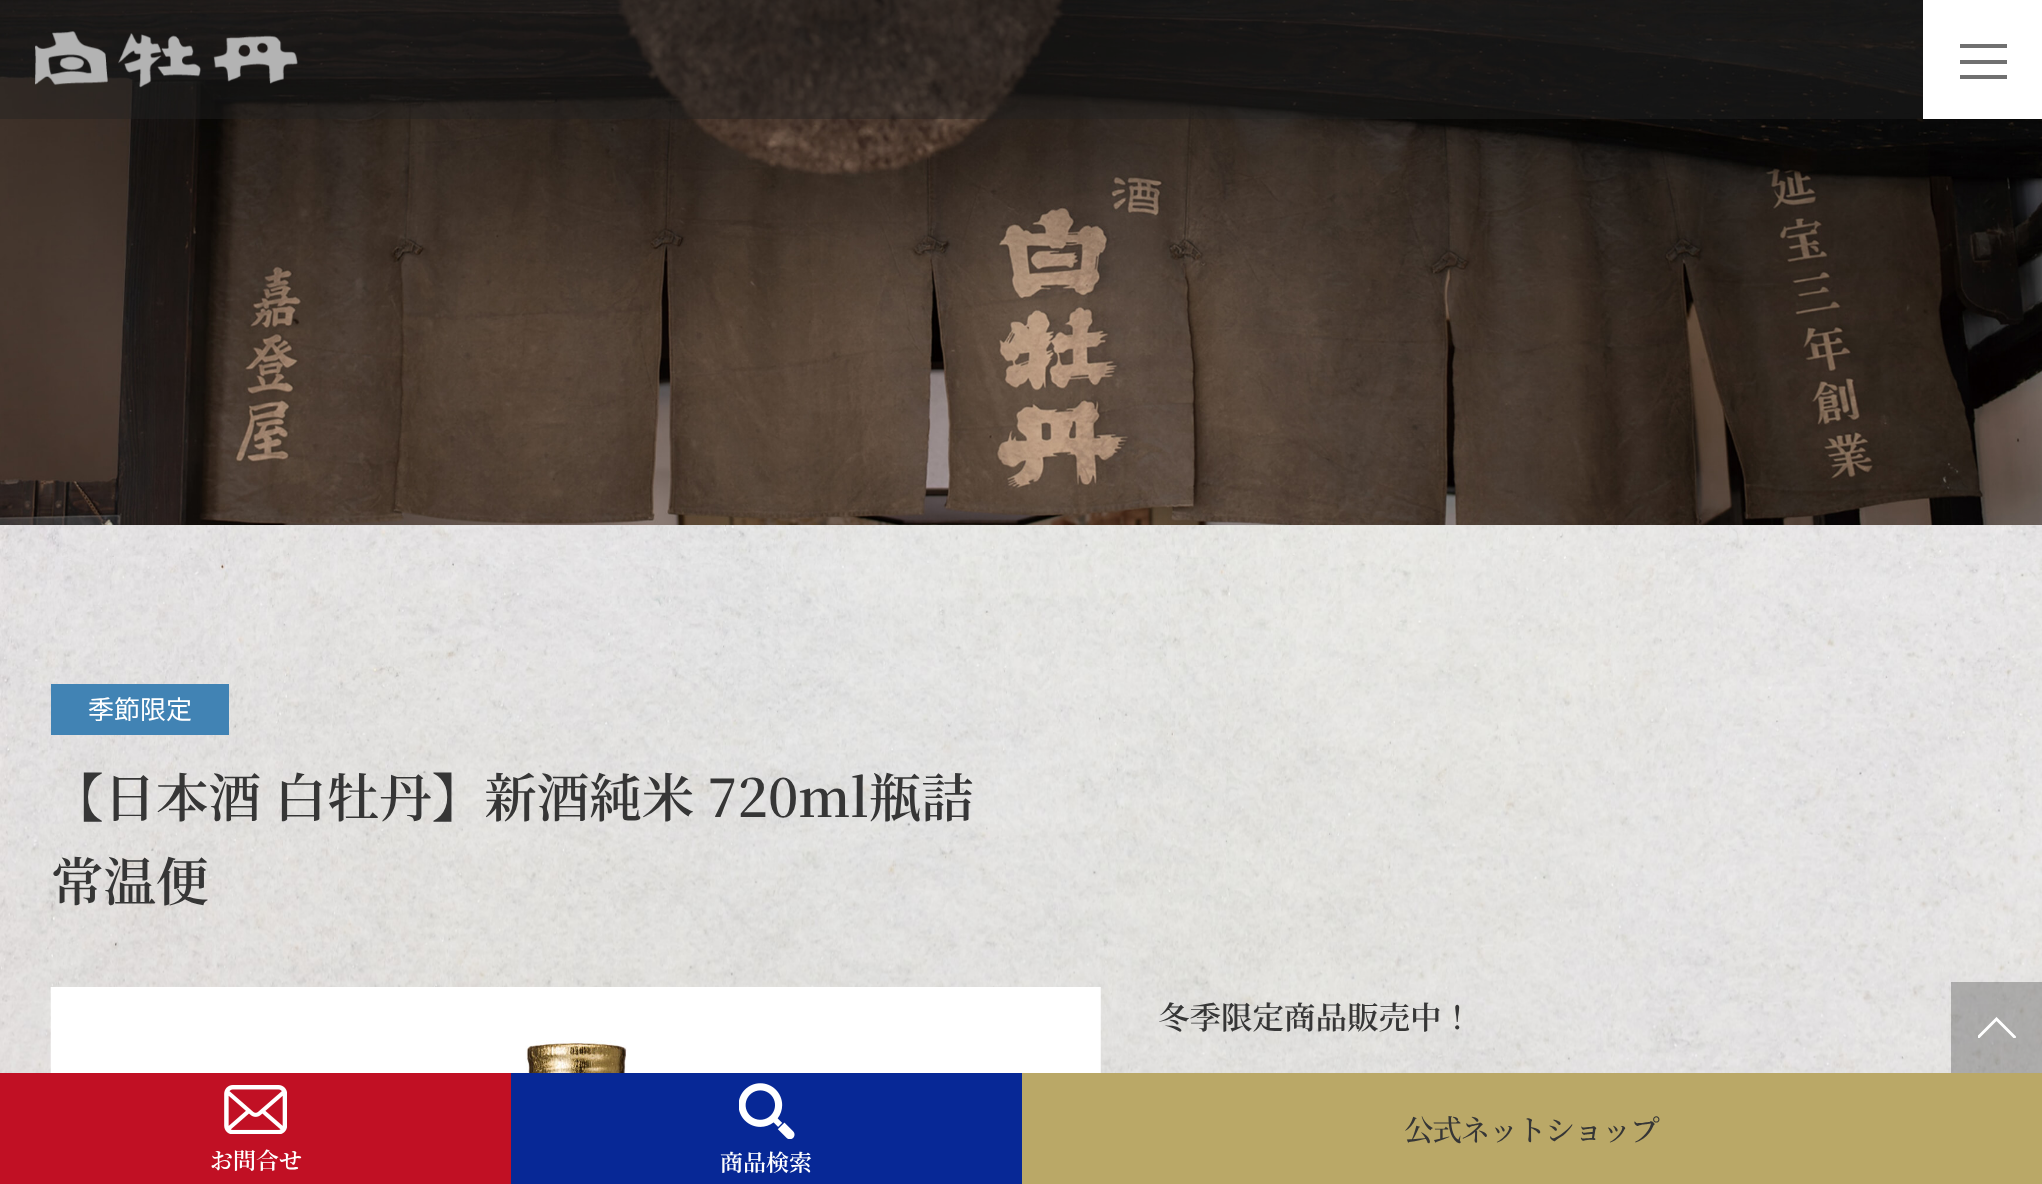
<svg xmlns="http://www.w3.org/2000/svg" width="2042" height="1184">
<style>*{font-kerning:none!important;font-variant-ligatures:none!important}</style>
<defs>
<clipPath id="clip1"><rect x="1978" y="1017" width="40" height="21"/></clipPath>
</defs>
<rect width="100%" height="100%" fill="#fff"/>
<image x="0" y="0" width="2042" height="525" href="media/2.png"/>
<rect width="1923" height="119" fill="#22222270"/>
<image x="35" y="31" width="263" height="57" href="media/1.png"/>
<rect x="1923" width="119" height="119" fill="#fff"/>
<rect x="1960" y="44" width="47" height="4" fill="#707070"/>
<rect x="1960" y="60" width="47" height="4" fill="#707070"/>
<rect x="1960" y="75" width="47" height="4" fill="#707070"/>
<image x="0" y="525" width="2042" height="548" href="media/3.png"/>
<rect x="51" y="684" width="178" height="51" fill="#4183b4"/>
<text x="88" y="719" style="font-family:Noto Sans JP;font-size:26px;fill:#fff">季節限定</text>
<text x="51" y="817" style="font-family:Noto Serif JP;font-size:52.5px;font-weight:600;fill:#363636">【日本酒 白牡丹】新酒純米 720ml瓶詰</text>
<text x="51" y="901" style="font-family:Noto Serif JP;font-size:52.5px;font-weight:600;fill:#363636">常温便</text>
<image x="50" y="987" width="1051" height="86" href="media/4.png"/>
<text x="1158" y="1029" style="font-family:Noto Serif JP;font-size:31.5px;font-weight:600;fill:#363636">冬季限定商品販売中！</text>
<rect x="1951" y="982" width="91" height="91" fill="#36363654"/>
<g clip-path="url(#clip1)">
<path d="M1978.5 1037l18-18l18 18" fill="none" stroke="#fff" stroke-width="2.9" stroke-linecap="round"/>
</g>
<rect x="1022" y="1073" width="1020" height="111" fill="#baa867"/>
<text x="1404" y="1141" style="font-family:Noto Serif JP;font-size:29.75px;font-weight:500;letter-spacing:-1.5px;fill:#363636">公式ネットショップ</text>
<rect y="1073" width="511" height="111" fill="#c11024"/>
<image x="224" y="1085" width="63" height="49" href="media/5.png"/>
<text x="210" y="1169" style="font-family:Noto Serif JP;font-size:23px;font-weight:600;fill:#fff">お問合せ</text>
<rect x="511" y="1073" width="511" height="111" fill="#072896"/>
<image x="739" y="1083" width="56" height="56" href="media/6.png"/>
<text x="720" y="1171" style="font-family:Noto Serif JP;font-size:23px;font-weight:600;fill:#fff">商品検索</text>
</svg>
